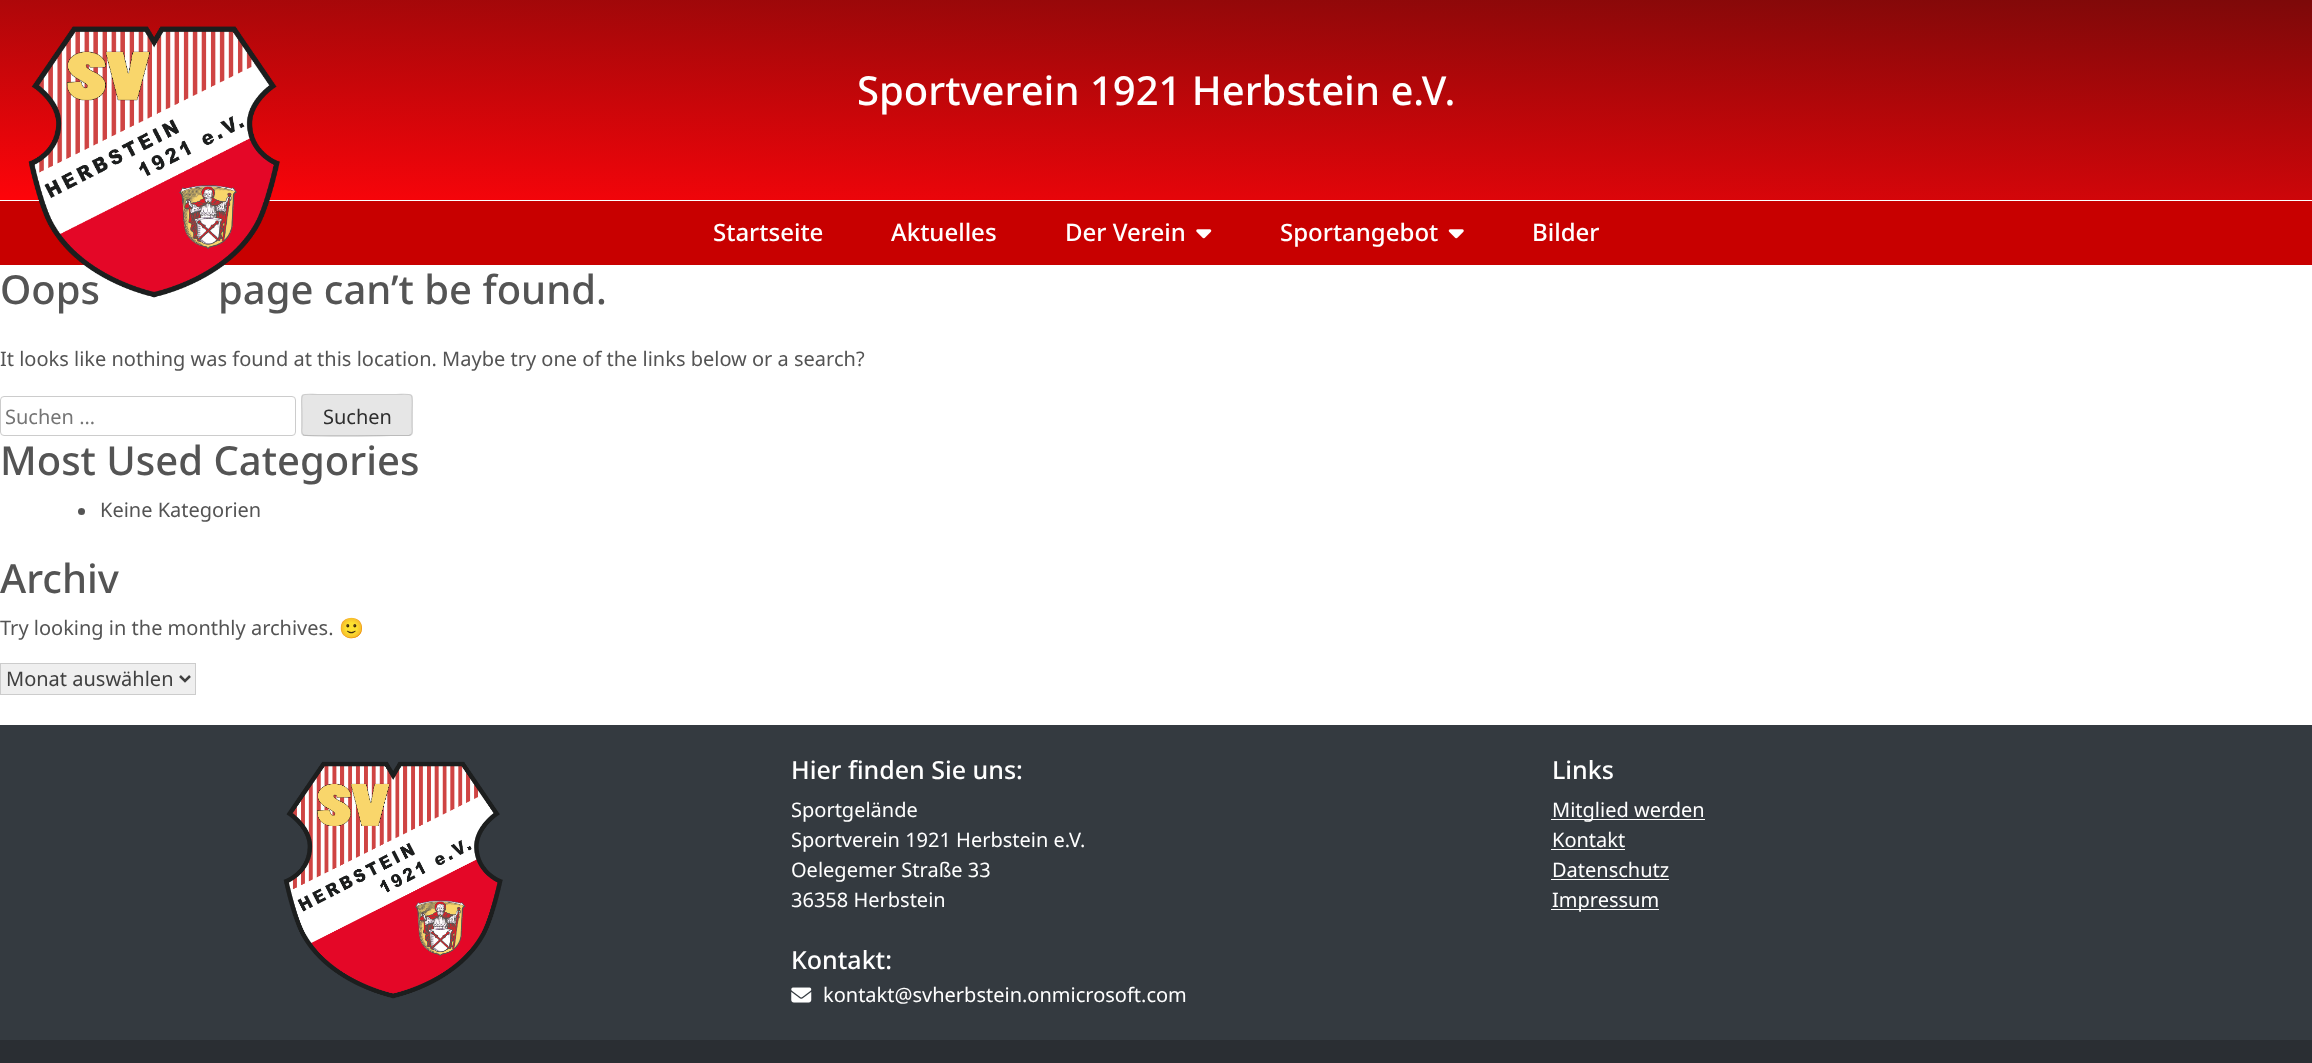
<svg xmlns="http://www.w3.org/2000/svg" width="2312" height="1063">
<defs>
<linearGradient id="g1" gradientUnits="userSpaceOnUse" x1="1165" y1="-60" x2="1148" y2="260"><stop offset="0" stop-color="#7d0909"/><stop offset="1" stop-color="#fe040a"/></linearGradient>
</defs>
<rect width="100%" height="100%" fill="#fff"/>
<rect width="2312" height="200" fill="url(#g1)"/>
<rect y="201" width="2312" height="64" fill="#c80000"/>
<text x="0" y="304" style="font-family:Noto Sans;font-size:40px;font-weight:500;fill:#545454">Oops</text>
<text x="218" y="304" style="font-family:Noto Sans;font-size:40px;font-weight:500;fill:#545454">page can’t be found.</text>
<image x="28" y="26" width="252" height="272" href="media/1.png"/>
<text x="857" y="105" style="font-family:Noto Sans;font-size:40px;font-weight:500;fill:#fff">Sportverein 1921 Herbstein e.V.</text>
<text x="713" y="241" style="font-family:Noto Sans;font-size:24px;font-weight:500;fill:#fff">Startseite</text>
<text x="891" y="241" style="font-family:Noto Sans;font-size:24px;font-weight:500;fill:#fff">Aktuelles</text>
<text x="1065" y="241" style="font-family:Noto Sans;font-size:24px;font-weight:500;fill:#fff">Der Verein</text>
<image x="1196" y="229" width="16" height="10" href="media/2.png"/>
<text x="1280" y="241" style="font-family:Noto Sans;font-size:24px;font-weight:500;fill:#fff">Sportangebot</text>
<image x="1448" y="229" width="16" height="10" href="media/3.png"/>
<text x="1532" y="241" style="font-family:Noto Sans;font-size:24px;font-weight:500;fill:#fff">Bilder</text>
<text x="0" y="366" style="font-family:Noto Sans;font-size:20px;fill:#545454">It looks like nothing was found at this location. Maybe try one of the links below or a search?</text>
<rect x="0.5" y="396.5" width="295" height="39" rx="3.5" fill="none" stroke="#ccc"/>
<text x="5" y="424" style="font-family:Noto Sans;font-size:20px;fill:#757575">Suchen …</text>
<rect x="301" y="394" width="112" height="42" rx="4" fill="#e6e6e6"/>
<path d="M411 434.5l-2 1h-17.5c-9.5 0-86 1-88-.5l-.5-.5" fill="none" stroke="#bbb" stroke-width="1.2"/>
<path d="M303 434.5c-2-1.5-1-6.5-1-8v-11.5c0-25-5-20.5 20.5-20.5h69c25 0 20.5-4.5 20.5 20.5v11.5c0 1.5 1 6.5-1 8" fill="none" stroke="#ccc" stroke-width="1.2"/>
<text x="323" y="424" style="font-family:Noto Sans;font-size:20px;fill:#2e2e2e">Suchen</text>
<text x="0" y="475" style="font-family:Noto Sans;font-size:40px;font-weight:500;fill:#545454">Most Used Categories</text>
<circle cx="81.5" cy="511.5" r="3.5" fill="#545454"/>
<text x="100" y="517" style="font-family:Noto Sans;font-size:20px;fill:#545454">Keine Kategorien</text>
<text x="0" y="593" style="font-family:Noto Sans;font-size:40px;font-weight:500;fill:#545454">Archiv</text>
<text x="0" y="635" style="font-family:Noto Sans;font-size:20px;fill:#545454">Try looking in the monthly archives.</text>
<text x="339" y="635" style="font-family:Noto Color Emoji;font-size:20px;fill:#545454">🙂</text>
<rect x="0.5" y="663.5" width="195" height="31" fill="#efefef" stroke="#ccc"/>
<path d="M180 676l5 5l5-5" fill="none" stroke="#404040" stroke-width="2.5"/>
<text x="6" y="686" style="font-family:Noto Sans;font-size:20px;fill:#404040">Monat auswählen</text>
<rect y="725" width="2312" height="315" fill="#343a40"/>
<image x="283" y="761" width="220" height="238" href="media/4.png"/>
<text x="791" y="779" style="font-family:Noto Sans;font-size:25px;font-weight:500;fill:#fff">Hier finden Sie uns:</text>
<text x="791" y="817" style="font-family:Noto Sans;font-size:20px;fill:#fff">Sportgelände</text>
<text x="791" y="847" style="font-family:Noto Sans;font-size:20px;fill:#fff">Sportverein 1921 Herbstein e.V.</text>
<text x="791" y="877" style="font-family:Noto Sans;font-size:20px;fill:#fff">Oelegemer Straße 33</text>
<text x="791" y="907" style="font-family:Noto Sans;font-size:20px;fill:#fff">36358 Herbstein</text>
<text x="791" y="969" style="font-family:Noto Sans;font-size:25px;font-weight:500;fill:#fff">Kontakt:</text>
<image x="791" y="987" width="21" height="16" href="media/5.png"/>
<text x="823" y="1002" style="font-family:Noto Sans;font-size:20px;fill:#fff">kontakt@svherbstein.onmicrosoft.com</text>
<text x="1552" y="779" style="font-family:Noto Sans;font-size:25px;font-weight:500;fill:#fff">Links</text>
<rect x="1551" y="819" width="154" height="1" fill="#fff"/>
<text x="1552" y="817" style="font-family:Noto Sans;font-size:20px;fill:#fff">Mitglied werden</text>
<text x="1552" y="847" style="font-family:Noto Sans;font-size:20px;fill:#fff">Kontakt</text>
<rect x="1551" y="849" width="74" height="1" fill="#fff"/>
<text x="1552" y="877" style="font-family:Noto Sans;font-size:20px;fill:#fff">Datenschutz</text>
<rect x="1551" y="879" width="118" height="1" fill="#fff"/>
<rect x="1551" y="909" width="108" height="1" fill="#fff"/>
<text x="1552" y="907" style="font-family:Noto Sans;font-size:20px;fill:#fff">Impressum</text>
<rect y="1040" width="2312" height="23" fill="#2a2e33"/>
</svg>
